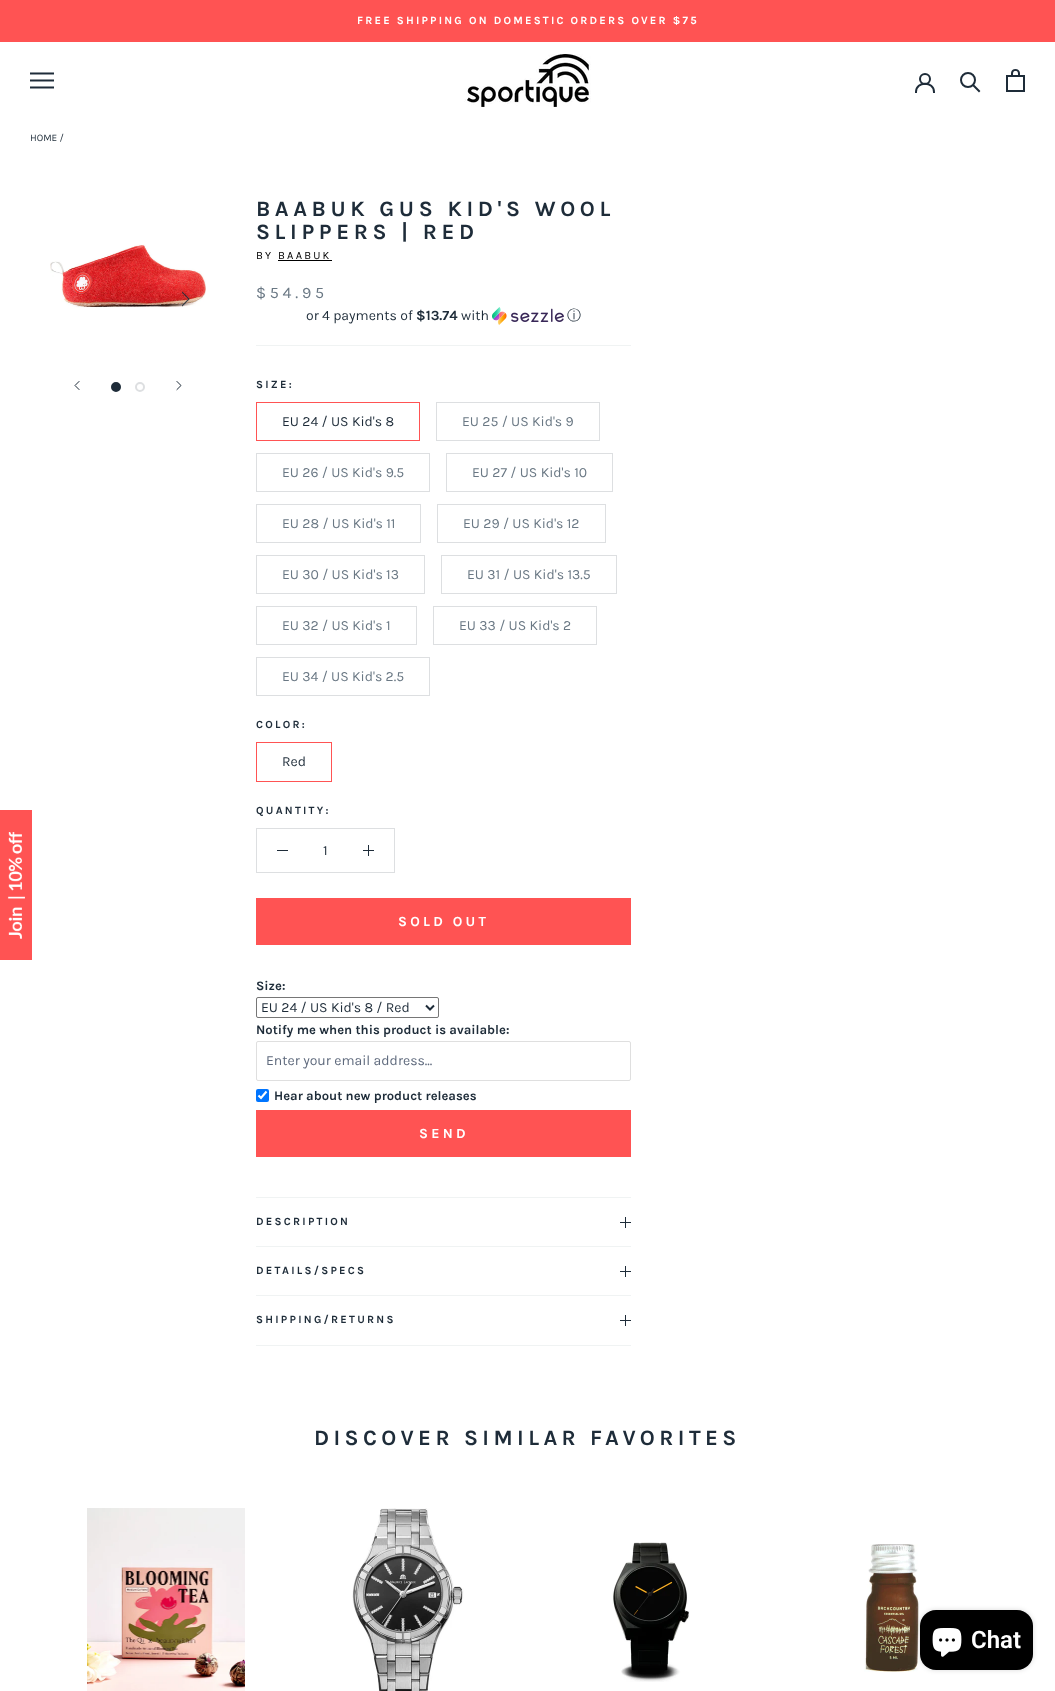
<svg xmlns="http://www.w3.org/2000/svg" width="1055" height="1691">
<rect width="100%" height="100%" fill="#fff"/>
<rect y="810" width="32" height="150" fill="#ff5353"/>
<image x="7" y="832" width="18" height="107" href="media/1.png"/>
<rect width="1055" height="42" fill="#ff5353"/>
<text x="357" y="24" style="font-family:Karla;font-size:11px;font-weight:bold;letter-spacing:2.2px;fill:#fff">FREE SHIPPING ON DOMESTIC ORDERS OVER $75</text>
<image x="30" y="72" width="24" height="17" href="media/2.png"/>
<image x="464" y="54" width="127" height="53" href="media/3.png"/>
<path d="M916 92c0-11 18-11 18 0" fill="none" stroke="#1e2c39" stroke-width="2" stroke-linecap="square"/>
<circle cx="925" cy="79" r="5" fill="none" stroke="#1e2c39" stroke-width="2"/>
<path d="M979 91l-5.5-5.5" fill="none" stroke="#1e2c39" stroke-width="2" stroke-linecap="square"/>
<circle cx="968" cy="80" r="7" fill="none" stroke="#1e2c39" stroke-width="2"/>
<image x="1006" y="69" width="19" height="23" href="media/4.png"/>
<text x="30" y="141" style="font-family:Karla;font-size:10px;fill:#1e2c39">HOME /</text>
<image x="50" y="244" width="156" height="64" href="media/5.png"/>
<image x="182" y="291" width="8" height="16" href="media/6.png"/>
<path d="M79 389.5l-4-4l4-4" fill="none" stroke="#1e2c39" stroke-linecap="square"/>
<circle cx="116" cy="387" r="4" fill="#1e2c39" stroke="#1e2c39" stroke-width="2"/>
<circle cx="140" cy="387" r="4" fill="none" stroke="#dddfe1" stroke-width="2"/>
<path d="M177 389.5l4-4l-4-4" fill="none" stroke="#1e2c39" stroke-linecap="square"/>
<text x="256" y="216" style="font-family:Karla;font-size:22px;font-weight:bold;letter-spacing:4.6px;fill:#1e2c39">BAABUK GUS KID'S WOOL</text>
<text x="256" y="239" style="font-family:Karla;font-size:22px;font-weight:bold;letter-spacing:4.6px;fill:#1e2c39">SLIPPERS | RED</text>
<text x="256" y="259" style="font-family:Karla;font-size:11px;letter-spacing:2.2px;fill:#000">BY BAABUK</text>
<rect x="278" y="260" width="54" height="1" fill="#000"/>
<text x="256" y="298" style="font-family:Karla;font-size:16px;letter-spacing:3.75px;fill:#6a7884">$54.95</text>
<text x="306" y="320" style="font-family:Karla;font-size:14px;fill:#1e2c39">or 4 payments of</text>
<text x="416" y="320" style="font-family:Karla;font-size:14px;font-weight:bold;fill:#1e2c39">$13.74</text>
<text x="461" y="320" style="font-family:Karla;font-size:14px;fill:#1e2c39">with</text>
<image x="492" y="307" width="72" height="18" href="media/7.png"/>
<text x="567" y="320" style="font-family:WenQuanYi Zen Hei;font-size:14px;font-weight:500;fill:#1e2c39">ⓘ</text>
<rect x="256" y="345" width="375" height="1" fill="#f0f3f3"/>
<text x="256" y="388" style="font-family:Karla;font-size:11px;font-weight:bold;letter-spacing:2.25px;fill:#1e2c39">SIZE:</text>
<rect x="256.5" y="402.5" width="163" height="38" fill="none" stroke="#ff5353"/>
<text x="282" y="426" style="font-family:Karla;font-size:14px;fill:#1e2c39">EU 24 / US Kid's 8</text>
<rect x="436.5" y="402.5" width="163" height="38" fill="none" stroke="#dddfe1"/>
<text x="462" y="426" style="font-family:Karla;font-size:14px;fill:#6a7884">EU 25 / US Kid's 9</text>
<rect x="256.5" y="453.5" width="173" height="38" fill="none" stroke="#dddfe1"/>
<text x="282" y="477" style="font-family:Karla;font-size:14px;fill:#6a7884">EU 26 / US Kid's 9.5</text>
<rect x="446.5" y="453.5" width="166" height="38" fill="none" stroke="#dddfe1"/>
<text x="472" y="477" style="font-family:Karla;font-size:14px;fill:#6a7884">EU 27 / US Kid's 10</text>
<rect x="256.5" y="504.5" width="164" height="38" fill="none" stroke="#dddfe1"/>
<text x="282" y="528" style="font-family:Karla;font-size:14px;fill:#6a7884">EU 28 / US Kid's 11</text>
<rect x="437.5" y="504.5" width="168" height="38" fill="none" stroke="#dddfe1"/>
<text x="463" y="528" style="font-family:Karla;font-size:14px;fill:#6a7884">EU 29 / US Kid's 12</text>
<rect x="256.5" y="555.5" width="168" height="38" fill="none" stroke="#dddfe1"/>
<text x="282" y="579" style="font-family:Karla;font-size:14px;fill:#6a7884">EU 30 / US Kid's 13</text>
<rect x="441.5" y="555.5" width="175" height="38" fill="none" stroke="#dddfe1"/>
<text x="467" y="579" style="font-family:Karla;font-size:14px;fill:#6a7884">EU 31 / US Kid's 13.5</text>
<rect x="256.5" y="606.5" width="160" height="38" fill="none" stroke="#dddfe1"/>
<text x="282" y="630" style="font-family:Karla;font-size:14px;fill:#6a7884">EU 32 / US Kid's 1</text>
<rect x="433.5" y="606.5" width="163" height="38" fill="none" stroke="#dddfe1"/>
<text x="459" y="630" style="font-family:Karla;font-size:14px;fill:#6a7884">EU 33 / US Kid's 2</text>
<rect x="256.5" y="657.5" width="173" height="38" fill="none" stroke="#dddfe1"/>
<text x="282" y="681" style="font-family:Karla;font-size:14px;fill:#6a7884">EU 34 / US Kid's 2.5</text>
<text x="256" y="728" style="font-family:Karla;font-size:11px;font-weight:bold;letter-spacing:2.25px;fill:#1e2c39">COLOR:</text>
<rect x="256.5" y="742.5" width="75" height="39" fill="none" stroke="#ff5353"/>
<text x="282" y="766" style="font-family:Karla;font-size:14px;fill:#1e2c39">Red</text>
<text x="256" y="814" style="font-family:Karla;font-size:11px;font-weight:bold;letter-spacing:2.25px;fill:#1e2c39">QUANTITY:</text>
<rect x="256.5" y="828.5" width="138" height="44" fill="none" stroke="#dddfe1"/>
<rect x="277" y="850" width="11" height="1" fill="#1e2c39"/>
<text x="323" y="855" style="font-family:Karla;font-size:14px;fill:#1e2c39">1</text>
<rect x="368" y="845" width="1" height="11" fill="#1e2c39"/>
<rect x="363" y="850" width="11" height="1" fill="#1e2c39"/>
<rect x="256.5" y="898.5" width="374" height="46" fill="none" stroke="#ff5353"/>
<rect x="257" y="899" width="373" height="45" fill="#ff5353"/>
<text x="398" y="926" style="font-family:Karla;font-size:14px;font-weight:bold;letter-spacing:3.25px;fill:#fff">SOLD OUT</text>
<text x="256" y="990" style="font-family:Karla;font-size:13px;font-weight:bold;fill:#1e2c39">Size:</text>
<rect x="256.5" y="997.5" width="182" height="20" rx="1.5" fill="none" stroke="#767676"/>
<path d="M426 1005.5l4 4l4-4" fill="none" stroke="#1e2c39" stroke-width="2"/>
<text x="261" y="1012" style="font-family:Karla;font-size:14px;fill:#1e2c39">EU 24 / US Kid's 8 / Red</text>
<text x="256" y="1034" style="font-family:Karla;font-size:13px;font-weight:bold;fill:#1e2c39">Notify me when this product is available:</text>
<rect x="256.5" y="1041.5" width="374" height="39" rx="1.5" fill="none" stroke="#dfdfdf"/>
<text x="266" y="1065" style="font-family:Karla;font-size:14px;fill:#5f6a7d">Enter your email address...</text>
<rect x="256" y="1089" width="13" height="13" rx="2" fill="#0075ff"/>
<path d="M258.5 1095.5l2.5 2.5l5.5-6.5" fill="none" stroke="#fff" stroke-width="2.1"/>
<text x="274" y="1100" style="font-family:Karla;font-size:13px;font-weight:bold;fill:#1e2c39">Hear about new product releases</text>
<rect x="256.5" y="1110.5" width="374" height="46" fill="none" stroke="#ff5353"/>
<rect x="257" y="1111" width="373" height="45" fill="#ff5353"/>
<text x="419" y="1138" style="font-family:Karla;font-size:14px;font-weight:bold;letter-spacing:3.25px;fill:#fff">SEND</text>
<rect x="256" y="1197" width="375" height="1" fill="#f0f3f3"/>
<rect x="256" y="1246" width="375" height="1" fill="#f0f3f3"/>
<text x="256" y="1225" style="font-family:Karla;font-size:11px;font-weight:bold;letter-spacing:2.25px;fill:#1e2c39">DESCRIPTION</text>
<rect x="625" y="1217" width="1" height="11" fill="#1e2c39"/>
<rect x="620" y="1222" width="11" height="1" fill="#1e2c39"/>
<rect x="256" y="1295" width="375" height="1" fill="#f0f3f3"/>
<text x="256" y="1274" style="font-family:Karla;font-size:11px;font-weight:bold;letter-spacing:2.25px;fill:#1e2c39">DETAILS/SPECS</text>
<rect x="625" y="1266" width="1" height="11" fill="#1e2c39"/>
<rect x="620" y="1271" width="11" height="1" fill="#1e2c39"/>
<rect x="256" y="1345" width="375" height="1" fill="#f0f3f3"/>
<text x="256" y="1323" style="font-family:Karla;font-size:11px;font-weight:bold;letter-spacing:2.25px;fill:#1e2c39">SHIPPING/RETURNS</text>
<rect x="625" y="1315" width="1" height="11" fill="#1e2c39"/>
<rect x="620" y="1320" width="11" height="1" fill="#1e2c39"/>
<text x="314" y="1445" style="font-family:Karla;font-size:22px;font-weight:bold;letter-spacing:4.4px;fill:#1e2c39">DISCOVER SIMILAR FAVORITES</text>
<image x="87" y="1508" width="158" height="183" href="media/8.png"/>
<image x="352" y="1508" width="112" height="183" href="media/9.png"/>
<image x="612" y="1542" width="78" height="140" href="media/10.png"/>
<image x="864" y="1544" width="56" height="128" href="media/11.png"/>
<rect x="920" y="1610" width="113" height="60" rx="16" fill="#00000026" filter="blur(2.5px)"/>
<rect x="920" y="1610" width="113" height="60" rx="16" fill="#000"/>
<image x="932" y="1628" width="30" height="29" href="media/12.png"/>
<text x="971" y="1648" style="font-family:Roboto;font-size:24px;font-weight:600;fill:#fff">Chat</text>
</svg>
